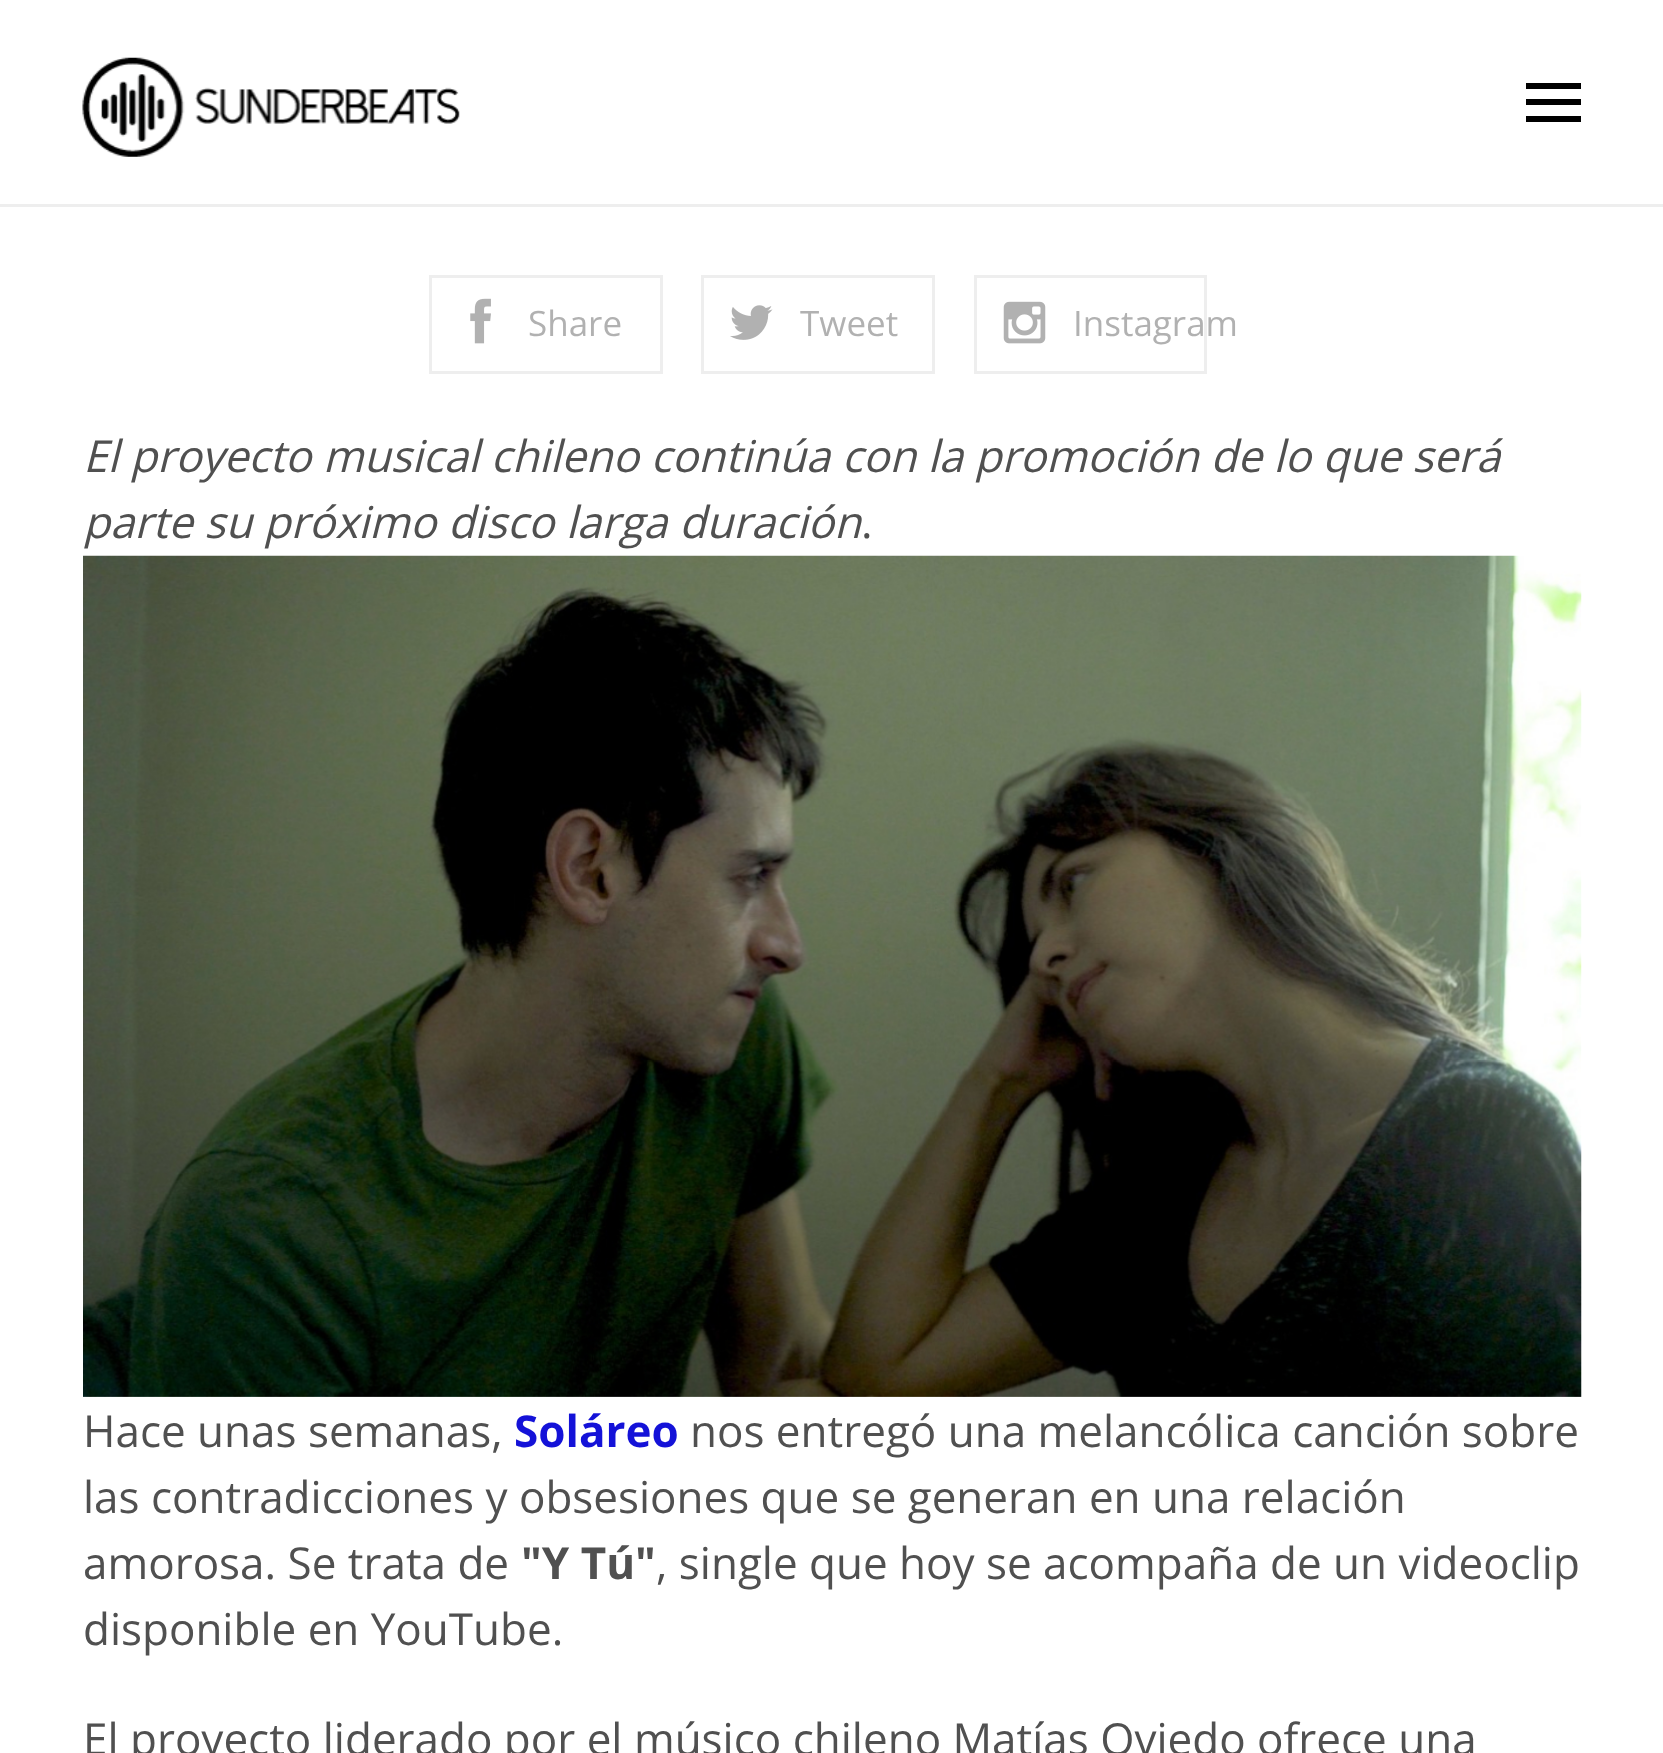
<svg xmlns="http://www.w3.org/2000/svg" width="1663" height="1753">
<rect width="100%" height="100%" fill="#fff"/>
<rect y="204" width="1663" height="3" fill="#eee"/>
<image x="82" y="57" width="378" height="100" href="media/1.png"/>
<rect x="1526" y="99" width="55" height="6" fill="#000"/>
<rect x="1526" y="83" width="55" height="6" fill="#000"/>
<rect x="1526" y="116" width="55" height="6" fill="#000"/>
<rect x="430.5" y="276.5" width="231" height="96" fill="none" stroke="#eee" stroke-width="3"/>
<image x="470" y="298" width="21" height="46" href="media/2.png"/>
<text x="528" y="336" style="font-family:Open Sans;font-size:35px;fill:#b1b1b1">Share</text>
<rect x="702.5" y="276.5" width="231" height="96" fill="none" stroke="#eee" stroke-width="3"/>
<image x="730" y="305" width="43" height="35" href="media/3.png"/>
<text x="800" y="336" style="font-family:Open Sans;font-size:35px;fill:#b1b1b1">Tweet</text>
<rect x="975.5" y="276.5" width="230" height="96" fill="none" stroke="#eee" stroke-width="3"/>
<image x="1003" y="301" width="43" height="43" href="media/4.png"/>
<text x="1073" y="336" style="font-family:Open Sans;font-size:35px;fill:#b1b1b1">Instagram</text>
<text x="83" y="472" style="font-family:Open Sans;font-size:44px;font-style:italic;fill:#505050">El proyecto musical chileno continúa con la promoción de lo que será</text>
<text x="83" y="538" style="font-family:Open Sans;font-size:44px;font-style:italic;fill:#505050">parte su próximo disco larga duración</text>
<text x="861" y="538" style="font-family:Open Sans;font-size:44px;fill:#505050">.</text>
<image x="83" y="555" width="1499" height="842" href="media/5.png"/>
<text x="83" y="1447" style="font-family:Open Sans;font-size:44px;fill:#505050">Hace unas semanas,</text>
<text x="514" y="1447" style="font-family:Open Sans;font-size:44px;font-weight:bold;fill:#1412d8">Soláreo</text>
<text x="690" y="1447" style="font-family:Open Sans;font-size:44px;fill:#505050">nos entregó una melancólica canción sobre</text>
<text x="83" y="1513" style="font-family:Open Sans;font-size:44px;fill:#505050">las contradicciones y obsesiones que se generan en una relación</text>
<text x="83" y="1579" style="font-family:Open Sans;font-size:44px;fill:#505050">amorosa. Se trata de</text>
<text x="521" y="1579" style="font-family:Open Sans;font-size:44px;font-weight:bold;fill:#505050">"Y Tú"</text>
<text x="656" y="1579" style="font-family:Open Sans;font-size:44px;fill:#505050">, single que hoy se acompaña de un videoclip</text>
<text x="83" y="1645" style="font-family:Open Sans;font-size:44px;fill:#505050">disponible en YouTube.</text>
<text x="83" y="1755" style="font-family:Open Sans;font-size:44px;fill:#505050">El proyecto liderado por el músico chileno Matías Oviedo ofrece una</text>
</svg>
